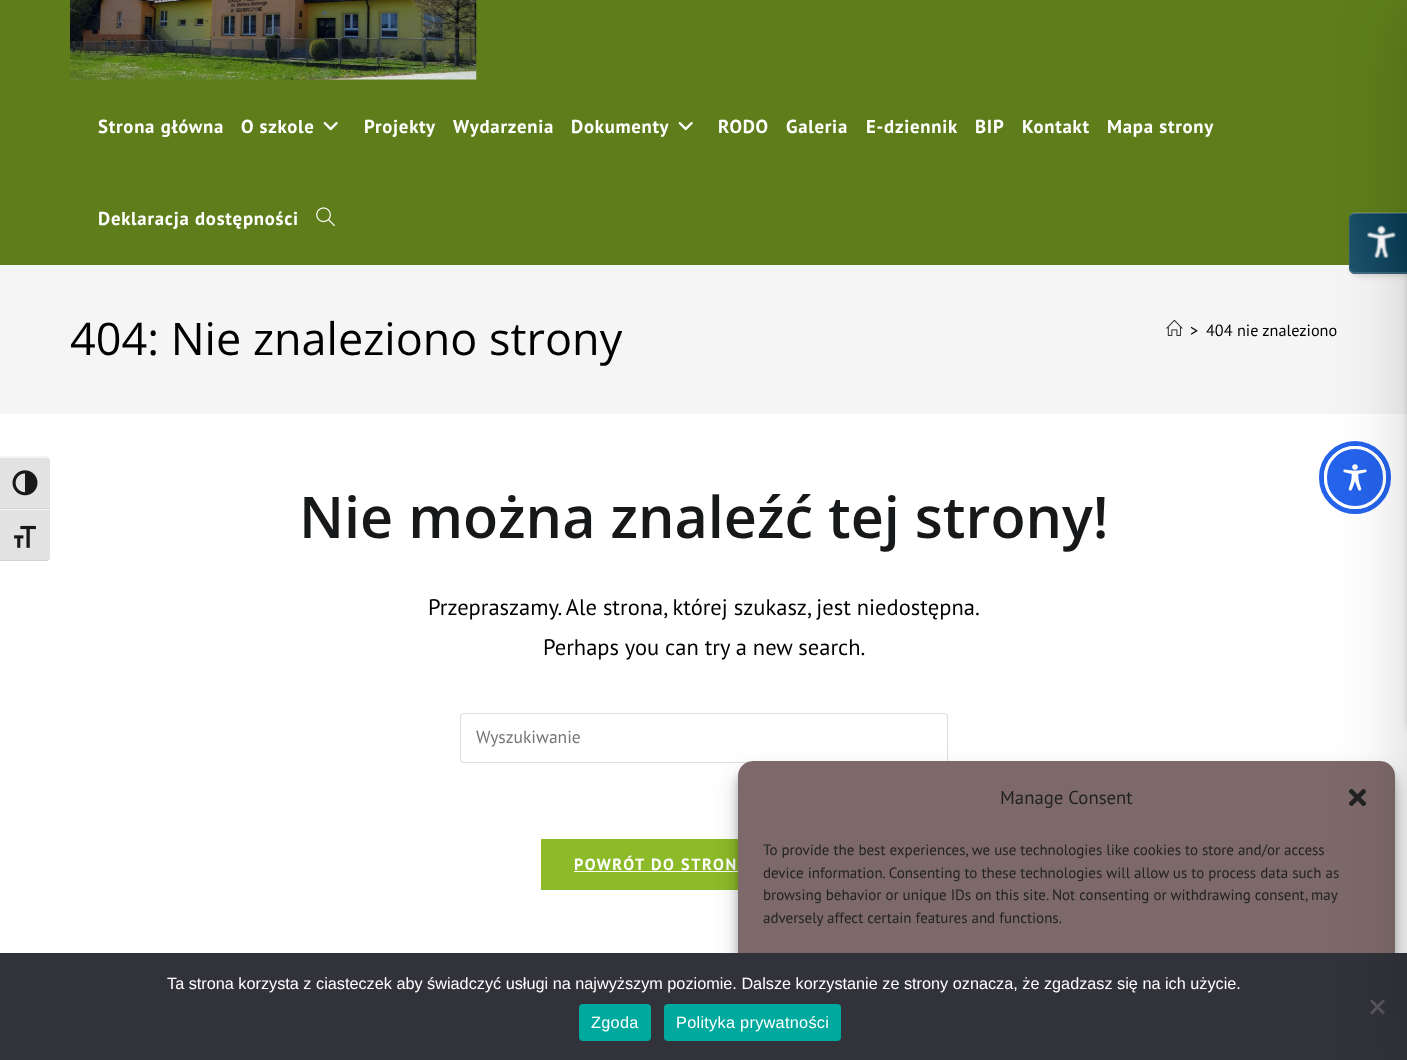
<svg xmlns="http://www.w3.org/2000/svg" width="1407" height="1060">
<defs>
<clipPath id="clip1"><path d="M1355 213h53v61h-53c-3.5 0-6-2.5-6-6v-49c0-3.5 2.5-6 6-6z"/></clipPath>
<linearGradient id="g1" gradientUnits="userSpaceOnUse" x1="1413" y1="175" x2="1345" y2="193"><stop offset="0.01" stop-color="#000" stop-opacity="0.35"/><stop offset="0.98" stop-color="#434343" stop-opacity="0.35"/></linearGradient>
<linearGradient id="g2" gradientUnits="userSpaceOnUse" x1="1355" y1="234" x2="1287" y2="252"><stop offset="0.01" stop-color="#000" stop-opacity="0.35"/><stop offset="0.98" stop-color="#434343" stop-opacity="0.35"/></linearGradient>
<linearGradient id="g3" gradientUnits="userSpaceOnUse" x1="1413" y1="234" x2="1345" y2="252"><stop offset="0.01" stop-color="#000" stop-opacity="0.35"/><stop offset="0.98" stop-color="#434343" stop-opacity="0.35"/></linearGradient>
<linearGradient id="g4" gradientUnits="userSpaceOnUse" x1="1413" y1="293" x2="1345" y2="311"><stop offset="0.01" stop-color="#000" stop-opacity="0.35"/><stop offset="0.98" stop-color="#434343" stop-opacity="0.35"/></linearGradient>
</defs>
<rect width="100%" height="100%" fill="#fff"/>
<rect width="1407" height="265" fill="#5f7e1b"/>
<image x="70" y="0" width="407" height="80" href="media/1.png"/>
<text x="98" y="133" style="font-family:PT Sans;font-size:18.75px;font-weight:bold;letter-spacing:0.75px;fill:#fff">Strona główna</text>
<text x="241" y="133" style="font-family:PT Sans;font-size:18.75px;font-weight:bold;letter-spacing:0.75px;fill:#fff">O szkole</text>
<image x="323" y="122" width="15" height="9" href="media/2.png"/>
<text x="364" y="133" style="font-family:PT Sans;font-size:18.75px;font-weight:bold;letter-spacing:0.75px;fill:#fff">Projekty</text>
<text x="453" y="133" style="font-family:PT Sans;font-size:18.75px;font-weight:bold;letter-spacing:0.75px;fill:#fff">Wydarzenia</text>
<text x="571" y="133" style="font-family:PT Sans;font-size:18.75px;font-weight:bold;letter-spacing:0.75px;fill:#fff">Dokumenty</text>
<image x="678" y="122" width="15" height="9" href="media/2.png"/>
<text x="718" y="133" style="font-family:PT Sans;font-size:18.75px;font-weight:bold;letter-spacing:0.75px;fill:#fff">RODO</text>
<text x="786" y="133" style="font-family:PT Sans;font-size:18.75px;font-weight:bold;letter-spacing:0.75px;fill:#fff">Galeria</text>
<text x="866" y="133" style="font-family:PT Sans;font-size:18.75px;font-weight:bold;letter-spacing:0.75px;fill:#fff">E-dziennik</text>
<text x="975" y="133" style="font-family:PT Sans;font-size:18.75px;font-weight:bold;letter-spacing:0.75px;fill:#fff">BIP</text>
<text x="1022" y="133" style="font-family:PT Sans;font-size:18.75px;font-weight:bold;letter-spacing:0.75px;fill:#fff">Kontakt</text>
<text x="1107" y="133" style="font-family:PT Sans;font-size:18.75px;font-weight:bold;letter-spacing:0.75px;fill:#fff">Mapa strony</text>
<text x="98" y="225" style="font-family:PT Sans;font-size:18.75px;font-weight:bold;letter-spacing:0.75px;fill:#fff">Deklaracja dostępności</text>
<image x="316" y="207" width="19" height="20" href="media/3.png"/>
<rect y="265" width="1407" height="149" fill="#f5f5f5"/>
<text x="70" y="355" style="font-family:Open Sans;font-size:45px;fill:#000">404: Nie znaleziono strony</text>
<image x="1166" y="319" width="17" height="17" href="media/4.png"/>
<text x="1190" y="336" style="font-family:PT Sans;font-size:16.25px;fill:#000">&gt;</text>
<text x="1206" y="336" style="font-family:PT Sans;font-size:16.25px;fill:#000">404 nie znaleziono</text>
<text x="299" y="538" style="font-family:Open Sans;font-size:57.5px;font-weight:600;fill:#161819">Nie można znaleźć tej strony!</text>
<text x="428" y="615" style="font-family:PT Sans;font-size:22.5px;fill:#000">Przepraszamy. Ale strona, której szukasz, jest niedostępna.</text>
<text x="543" y="655" style="font-family:PT Sans;font-size:22.5px;fill:#000">Perhaps you can try a new search.</text>
<rect x="460.5" y="713.5" width="487" height="49" rx="3.5" fill="none" stroke="#ddd"/>
<text x="476" y="743" style="font-family:PT Sans;font-size:17.5px;fill:#757575">Wyszukiwanie</text>
<rect x="541" y="839" width="197" height="51" fill="#8cba29"/>
<text x="574" y="870" style="font-family:PT Sans;font-size:16.25px;font-weight:bold;letter-spacing:1.6px;fill:#fff">POWRÓT DO STRON</text>
<rect x="574" y="871" width="164" height="1" fill="#fff"/>
<rect x="1353" y="215" width="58" height="61" rx="6" fill="#00000024" filter="blur(3px)"/>
<rect x="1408" y="219" width="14" height="511" rx="6" fill="#00010133" filter="blur(3px)"/>
<path d="M1355 213h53v61h-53c-3.5 0-6-2.5-6-6v-49c0-3.5 2.5-6 6-6z" fill="#095a81"/>
<g clip-path="url(#clip1)">
<rect x="1350" y="213" width="57" height="1" fill="url(#g1)"/>
<rect x="1349" y="214" width="1" height="59" fill="url(#g2)"/>
<rect x="1350" y="214" width="57" height="59" fill="url(#g3)"/>
<rect x="1350" y="273" width="57" height="1" fill="url(#g4)"/>
</g>
<path d="M1355 212h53v62h-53c-3 0-6-3-6-6v-49c0-4 3-7 6-7zm0 2h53v58h-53c-3 0-5-2-5-4v-49c0-3 2-5 5-5z" fill="#ffffff2b" fill-rule="evenodd"/>
<image x="1367" y="225" width="29" height="33" href="media/5.png"/>
<rect x="1321.5" y="443.5" width="67" height="68" rx="33.5" fill="none" stroke="#2563eb" stroke-width="5"/>
<rect x="1325.5" y="447.5" width="59" height="60" rx="29.5" fill="#2563eb" stroke="#fff" stroke-width="3"/>
<image x="1343" y="464" width="24" height="27" href="media/8.png"/>
<rect x="738" y="769" width="657" height="286" rx="15" fill="#0000003b" filter="blur(4px)"/>
<rect x="738" y="774" width="657" height="286" rx="15" fill="#00000030" filter="blur(12.5px)"/>
<rect x="738" y="761" width="657" height="287" rx="15" fill="#7d6969"/>
<image x="1348" y="789" width="18" height="17" href="media/9.png"/>
<rect y="953" width="1407" height="107" fill="#32323a"/>
<path d="M1383 999.5l2 1.5l-13 13.5l-2-2z" fill="#59595d"/>
<path d="M1370 1001l2-1.5l13 13l-2 2z" fill="#59595d"/>
<rect x="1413" y="13" width="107" height="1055" fill="#00000033" filter="blur(37.5px)"/>
<path d="M0 456h45c3 0 5 2 5 5v48h-50z" fill="#e2e2e2"/>
<path d="M0 458h45c3 0 5 1 5 3c0-2-1-4-3-5h-47z" fill="#f5f5f5"/>
<rect y="508" width="50" height="1" fill="#d2d2d2"/>
<image x="12" y="470" width="26" height="26" href="media/6.png"/>
<path d="M0 509h50v47c0 3-2 5-5 5h-45z" fill="#e2e2e2"/>
<rect y="509" width="50" height="1" fill="#f5f5f5"/>
<path d="M0 560v1h45c3 0 5-2 5-5c0 2-2 4-5 4z" fill="#d2d2d2"/>
<image x="14" y="525" width="22" height="23" href="media/7.png"/>
<text x="1000" y="804" style="font-family:PT Sans;font-size:18.75px;fill:#222">Manage Consent</text>
<text x="763" y="855" style="font-family:PT Sans;font-size:15px;fill:#222">To provide the best experiences, we use technologies like cookies to store and/or access</text>
<text x="763" y="878" style="font-family:PT Sans;font-size:15px;fill:#222">device information. Consenting to these technologies will allow us to process data such as</text>
<text x="763" y="900" style="font-family:PT Sans;font-size:15px;fill:#222">browsing behavior or unique IDs on this site. Not consenting or withdrawing consent, may</text>
<text x="763" y="923" style="font-family:PT Sans;font-size:15px;fill:#222">adversely affect certain features and functions.</text>
<text x="167" y="989" style="font-family:Liberation Sans;font-size:16.25px;fill:#fff">Ta strona korzysta z ciasteczek aby świadczyć usługi na najwyższym poziomie. Dalsze korzystanie ze strony oznacza, że zgadzasz się na ich użycie.</text>
<rect x="579" y="1004" width="72" height="37" rx="4" fill="#00a99d"/>
<text x="591" y="1028" style="font-family:Liberation Sans;font-size:16.25px;letter-spacing:0.3px;fill:#fff">Zgoda</text>
<rect x="664" y="1004" width="177" height="37" rx="4" fill="#00a99d"/>
<text x="676" y="1028" style="font-family:Liberation Sans;font-size:16.25px;letter-spacing:0.3px;fill:#fff">Polityka prywatności</text>
</svg>
